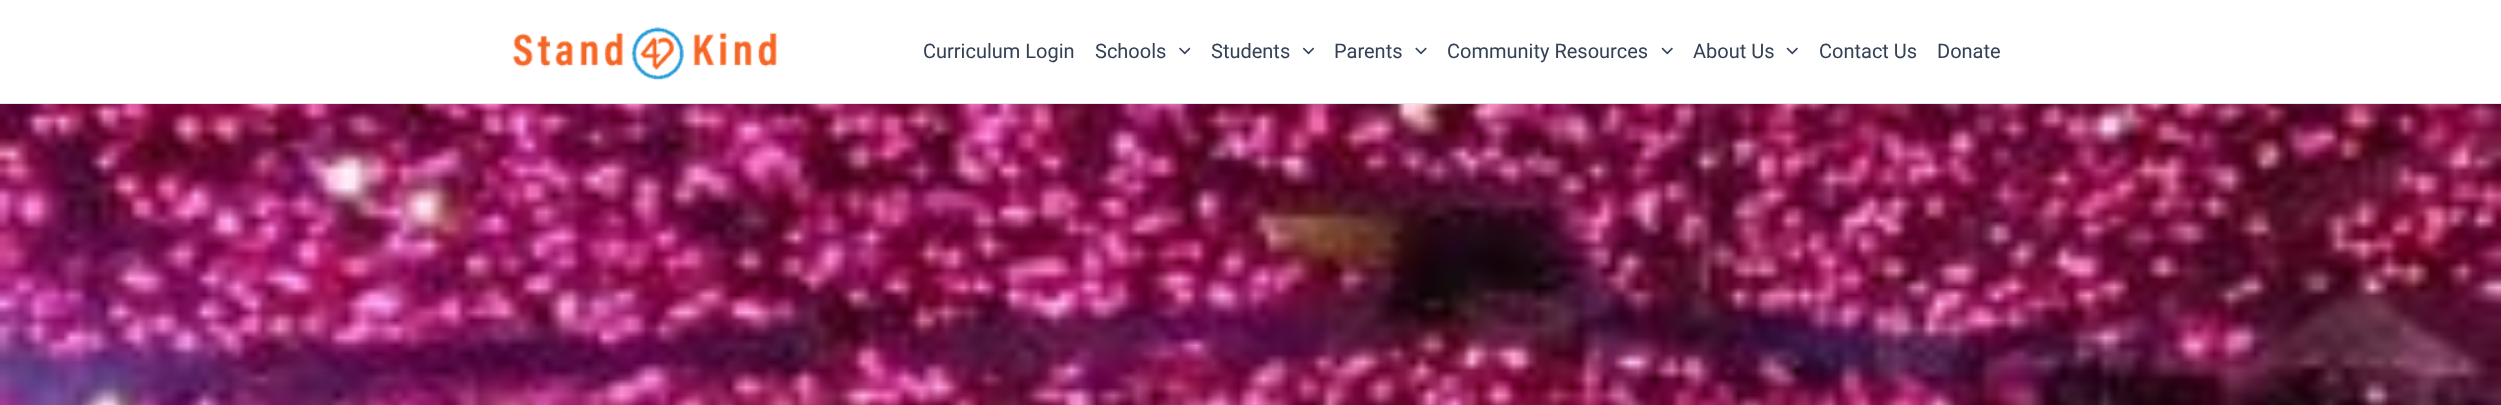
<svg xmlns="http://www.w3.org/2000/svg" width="2501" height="405">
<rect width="100%" height="100%" fill="#fff"/>
<rect y="103" width="2501" height="1" fill="#e2e8f0"/>
<image x="512" y="27" width="265" height="54" href="media/1.png"/>
<text x="923" y="58" style="font-family:Roboto;font-size:20px;fill:#334155">Curriculum Login</text>
<text x="1095" y="58" style="font-family:Roboto;font-size:20px;fill:#334155">Schools</text>
<image x="1179" y="47" width="11" height="8" href="media/2.png"/>
<text x="1211" y="58" style="font-family:Roboto;font-size:20px;fill:#334155">Students</text>
<image x="1303" y="47" width="11" height="8" href="media/3.png"/>
<text x="1334" y="58" style="font-family:Roboto;font-size:20px;fill:#334155">Parents</text>
<image x="1415" y="47" width="12" height="8" href="media/4.png"/>
<text x="1447" y="58" style="font-family:Roboto;font-size:20px;fill:#334155">Community Resources</text>
<image x="1661" y="47" width="12" height="8" href="media/5.png"/>
<text x="1693" y="58" style="font-family:Roboto;font-size:20px;fill:#334155">About Us</text>
<image x="1786" y="47" width="12" height="8" href="media/5.png"/>
<text x="1819" y="58" style="font-family:Roboto;font-size:20px;fill:#334155">Contact Us</text>
<text x="1937" y="58" style="font-family:Roboto;font-size:20px;fill:#334155">Donate</text>
<image x="0" y="104" width="2501" height="301" href="media/6.png"/>
</svg>
